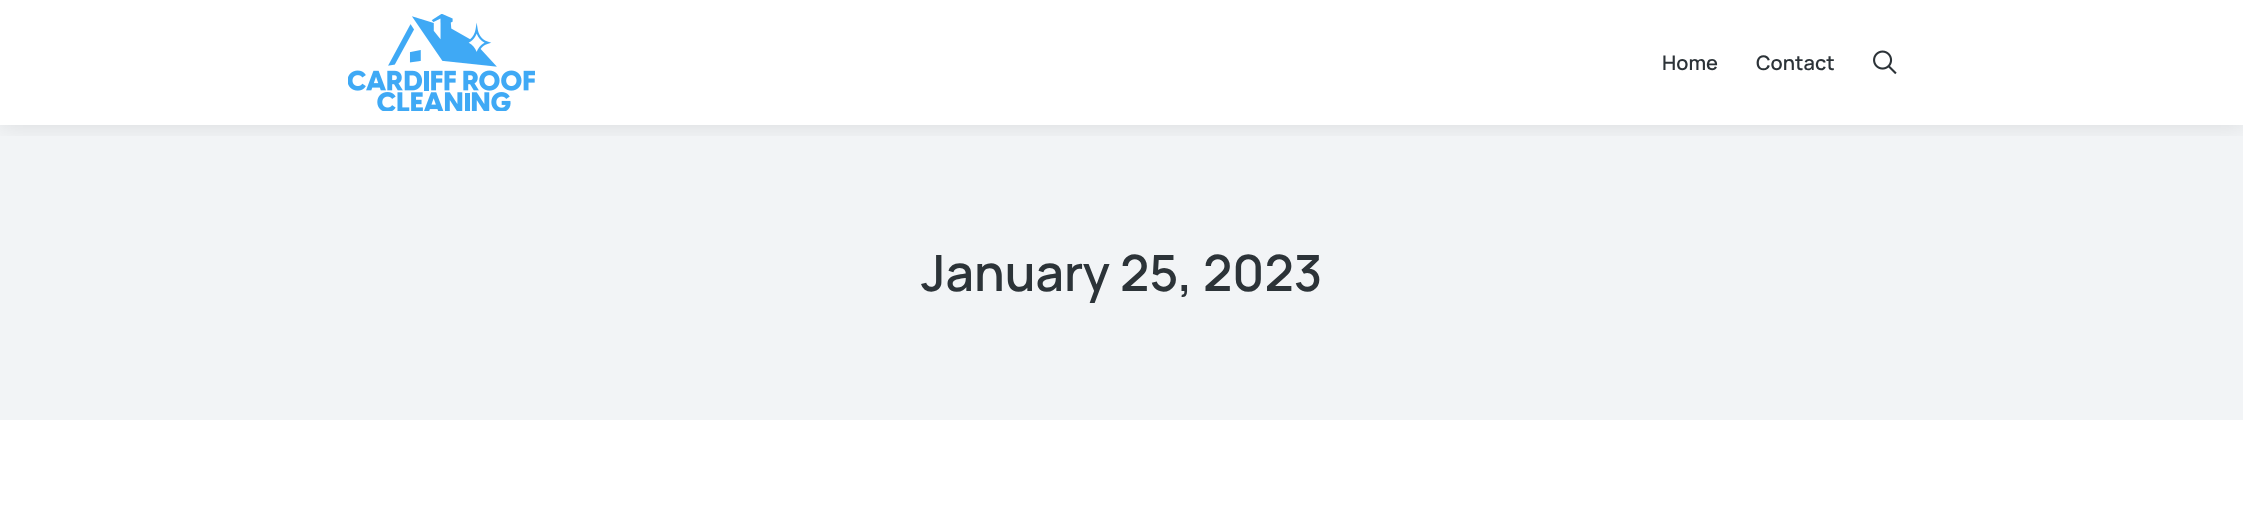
<svg xmlns="http://www.w3.org/2000/svg" width="2243" height="524">
<defs>
<clipPath id="clip1"><rect x="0" y="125" width="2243" height="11"/></clipPath>
</defs>
<rect width="100%" height="100%" fill="#fff"/>
<rect y="125" width="2243" height="295" fill="#f2f4f6"/>
<g clip-path="url(#clip1)">
<rect width="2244" height="125" fill="#0000001a" filter="blur(12.5px)"/>
</g>
<image x="348" y="14" width="187" height="97" href="media/1.png"/>
<text x="1662" y="70" style="font-family:Manrope;font-size:20px;font-weight:600;fill:#2c3338">Home</text>
<text x="1756" y="70" style="font-family:Manrope;font-size:20px;font-weight:600;fill:#2c3338">Contact</text>
<image x="1873" y="50" width="24" height="25" href="media/2.png"/>
<text x="921" y="291" style="font-family:Manrope;font-size:50px;font-weight:600;fill:#2c3338">January 25, 2023</text>
</svg>
